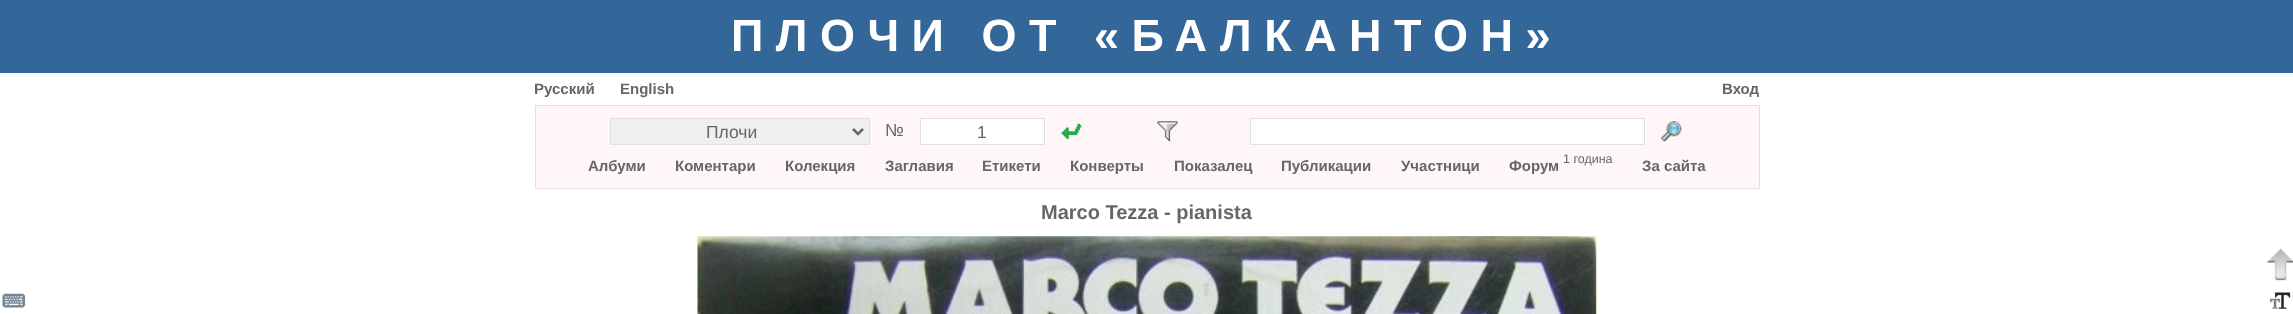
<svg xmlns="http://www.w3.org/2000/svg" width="2293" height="314">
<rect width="100%" height="100%" fill="#fff"/>
<rect width="2293" height="73" fill="#369"/>
<text x="731" y="51" style="font-family:Liberation Sans;font-size:45px;font-weight:bold;letter-spacing:12.5px;fill:#fff">ПЛОЧИ ОТ «БАЛКАНТОН»</text>
<text x="534" y="94" style="font-family:Liberation Sans;font-size:15px;font-weight:bold;fill:#666">Русский</text>
<text x="620" y="94" style="font-family:Liberation Sans;font-size:15px;font-weight:bold;fill:#666">English</text>
<text x="1722" y="94" style="font-family:Liberation Sans;font-size:15px;font-weight:bold;fill:#666">Вход</text>
<rect x="535.5" y="105.5" width="1224" height="83" fill="#fff7f7" stroke="#e0e0e0"/>
<rect x="610.5" y="118.5" width="259" height="26" fill="#efefef" stroke="#e0e0e0"/>
<path d="M853 129l5 5l5-5" fill="none" stroke="#666" stroke-width="2.5"/>
<text x="706" y="138" style="font-family:Liberation Sans;font-size:17.5px;fill:#666">Плочи</text>
<text x="885" y="136" style="font-family:Liberation Sans;font-size:17.5px;fill:#666">№</text>
<rect x="920.5" y="118.5" width="124" height="26" fill="#fff" stroke="#e0e0e0"/>
<text x="977" y="138" style="font-family:Liberation Sans;font-size:17.5px;fill:#666">1</text>
<image x="1061" y="123" width="21" height="16" href="media/1.png"/>
<image x="1157" y="121" width="21" height="21" href="media/2.png"/>
<rect x="1250.5" y="118.5" width="394" height="26" fill="#fff" stroke="#e0e0e0"/>
<image x="1661" y="121" width="21" height="21" href="media/3.png"/>
<text x="588" y="171" style="font-family:Liberation Sans;font-size:15px;font-weight:bold;fill:#666">Албуми</text>
<text x="675" y="171" style="font-family:Liberation Sans;font-size:15px;font-weight:bold;fill:#666">Коментари</text>
<text x="785" y="171" style="font-family:Liberation Sans;font-size:15px;font-weight:bold;fill:#666">Колекция</text>
<text x="885" y="171" style="font-family:Liberation Sans;font-size:15px;font-weight:bold;fill:#666">Заглавия</text>
<text x="982" y="171" style="font-family:Liberation Sans;font-size:15px;font-weight:bold;fill:#666">Етикети</text>
<text x="1070" y="171" style="font-family:Liberation Sans;font-size:15px;font-weight:bold;fill:#666">Конверты</text>
<text x="1174" y="171" style="font-family:Liberation Sans;font-size:15px;font-weight:bold;fill:#666">Показалец</text>
<text x="1281" y="171" style="font-family:Liberation Sans;font-size:15px;font-weight:bold;fill:#666">Публикации</text>
<text x="1401" y="171" style="font-family:Liberation Sans;font-size:15px;font-weight:bold;fill:#666">Участници</text>
<text x="1509" y="171" style="font-family:Liberation Sans;font-size:15px;font-weight:bold;fill:#666">Форум</text>
<text x="1563" y="163" style="font-family:Liberation Sans;font-size:12.5px;fill:#666">1 година</text>
<text x="1642" y="171" style="font-family:Liberation Sans;font-size:15px;font-weight:bold;fill:#666">За сайта</text>
<text x="1041" y="219" style="font-family:Liberation Sans;font-size:20px;font-weight:bold;fill:#666">Marco Tezza - pianista</text>
<image x="697" y="236" width="900" height="78" href="media/4.png"/>
<image x="2266" y="248" width="27" height="33" href="media/5.png"/>
<image x="2" y="293" width="24" height="15" href="media/6.png"/>
<image x="2269" y="292" width="22" height="17" href="media/7.png"/>
</svg>
